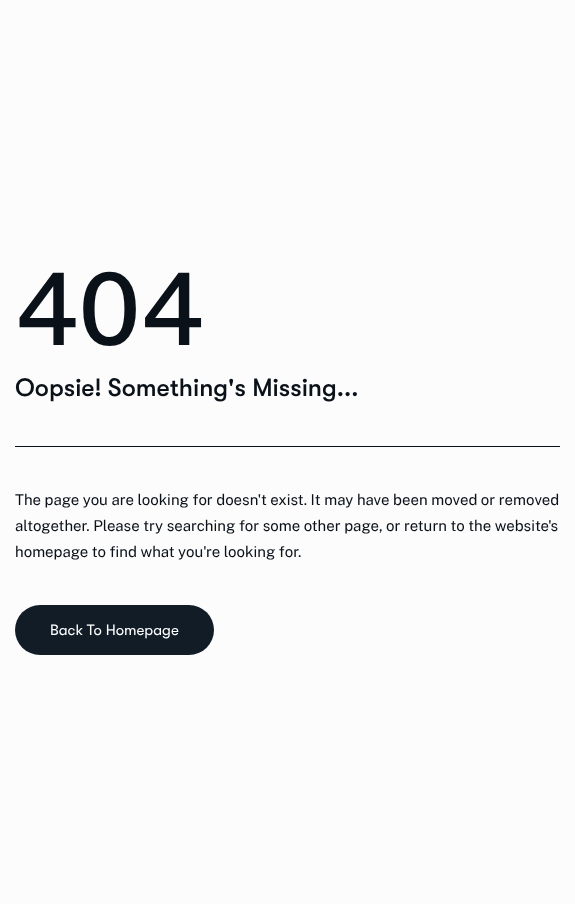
<svg xmlns="http://www.w3.org/2000/svg" width="575" height="904">
<rect width="100%" height="100%" fill="#fcfcfc"/>
<text x="15" y="345" style="font-family:Public Sans;font-size:100px;font-weight:500;fill:#0a1119">404</text>
<text x="15" y="396" style="font-family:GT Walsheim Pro;font-size:25px;font-weight:500;fill:#0a1119">Oopsie! Something's Missing...</text>
<rect x="15" y="446" width="545" height="1" fill="#0a1119"/>
<text x="15" y="505" style="font-family:Public Sans;font-size:15px;fill:#0a1119">The page you are looking for doesn't exist. It may have been moved or removed</text>
<text x="15" y="531" style="font-family:Public Sans;font-size:15px;fill:#0a1119">altogether. Please try searching for some other page, or return to the website's</text>
<text x="15" y="557" style="font-family:Public Sans;font-size:15px;fill:#0a1119">homepage to find what you're looking for.</text>
<rect x="15" y="605" width="199" height="50" rx="25" fill="#121c27"/>
<text x="50" y="635" style="font-family:GT Walsheim Pro;font-size:15px;fill:#fff">Back To Homepage</text>
</svg>
